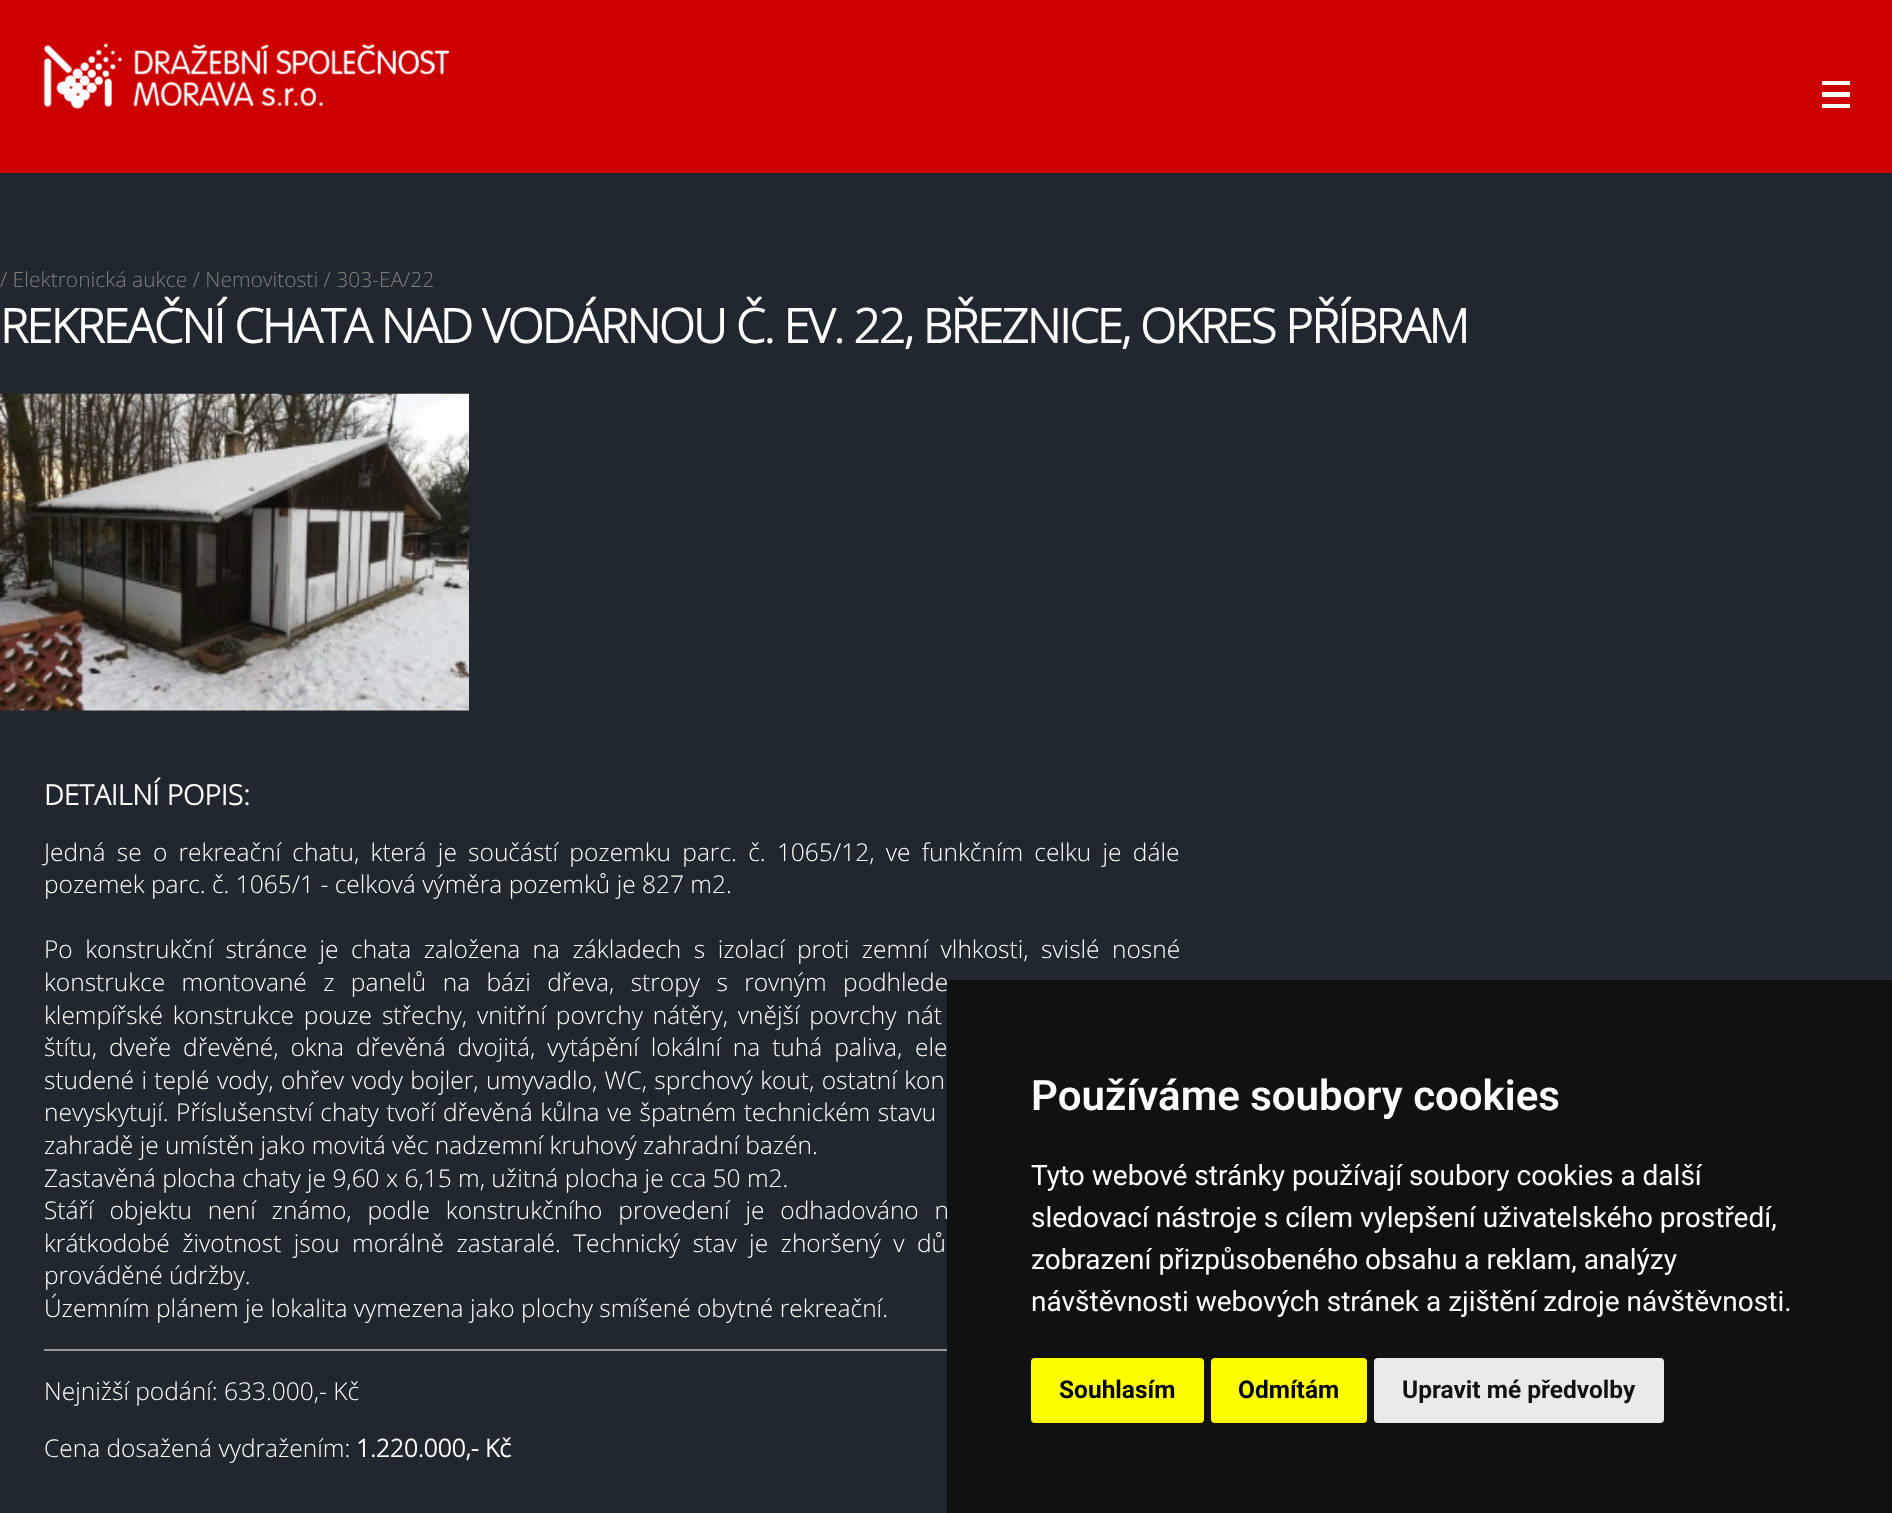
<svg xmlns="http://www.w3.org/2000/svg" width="1892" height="1513">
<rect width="100%" height="100%" fill="#21272f"/>
<rect width="1892" height="173" fill="#c00"/>
<rect x="1822" y="81" width="28" height="4" fill="#fefefe"/>
<rect x="1822" y="92" width="28" height="5" fill="#fefefe"/>
<rect x="1822" y="104" width="28" height="4" fill="#fefefe"/>
<image x="43" y="43" width="407" height="66" href="media/1.png"/>
<text x="0" y="287" style="font-family:Open Sans;font-size:21px;font-weight:300;fill:#808080">/ Elektronická aukce / Nemovitosti / 303-EA/22</text>
<text x="0" y="343" style="font-family:Open Sans;font-size:47.25px;font-weight:bold;letter-spacing:-1.75px;fill:#fff">REKREAČNÍ CHATA NAD VODÁRNOU Č. EV. 22, BŘEZNICE, OKRES PŘÍBRAM</text>
<image x="0" y="393" width="469" height="318" href="media/2.png"/>
<text x="44" y="805" style="font-family:Open Sans;font-size:28px;font-weight:bold;fill:#fff">DETAILNÍ POPIS:</text>
<text x="44" y="861" word-spacing="4.9" style="font-family:Open Sans;font-size:24.5px;font-weight:300;fill:#fff">Jedná se o rekreační chatu, která je součástí pozemku parc. č. 1065/12, ve funkčním celku je dále</text>
<text x="44" y="893" style="font-family:Open Sans;font-size:24.5px;font-weight:300;fill:#fff">pozemek parc. č. 1065/1 - celková výměra pozemků je 827 m2.</text>
<text x="44" y="958" word-spacing="6.1" style="font-family:Open Sans;font-size:24.5px;font-weight:300;fill:#fff">Po konstrukční stránce je chata založena na základech s izolací proti zemní vlhkosti, svislé nosné</text>
<text x="44" y="991" word-spacing="10" style="font-family:Open Sans;font-size:24.5px;font-weight:300;fill:#fff">konstrukce montované z panelů na bázi dřeva, stropy s rovným podhlede</text>
<text x="44" y="1024" word-spacing="3.5" style="font-family:Open Sans;font-size:24.5px;font-weight:300;fill:#fff">klempířské konstrukce pouze střechy, vnitřní povrchy nátěry, vnější povrchy nát</text>
<text x="44" y="1056" word-spacing="5.5" style="font-family:Open Sans;font-size:24.5px;font-weight:300;fill:#fff">štítu, dveře dřevěné, okna dřevěná dvojitá, vytápění lokální na tuhá paliva,</text>
<text x="915" y="1056" word-spacing="5.5" style="font-family:Open Sans;font-size:24.5px;font-weight:300;fill:#fff">ele</text>
<text x="44" y="1089" word-spacing="1" style="font-family:Open Sans;font-size:24.5px;font-weight:300;fill:#fff">studené i teplé vody, ohřev vody bojler, umyvadlo, WC, sprchový kout, ostatní kon</text>
<text x="44" y="1121" word-spacing="1.25" style="font-family:Open Sans;font-size:24.5px;font-weight:300;fill:#fff">nevyskytují. Příslušenství chaty tvoří dřevěná kůlna ve špatném technickém stavu</text>
<text x="44" y="1154" style="font-family:Open Sans;font-size:24.5px;font-weight:300;fill:#fff">zahradě je umístěn jako movitá věc nadzemní kruhový zahradní bazén.</text>
<text x="44" y="1187" style="font-family:Open Sans;font-size:24.5px;font-weight:300;fill:#fff">Zastavěná plocha chaty je 9,60 x 6,15 m, užitná plocha je cca 50 m2.</text>
<text x="44" y="1219" word-spacing="9.5" style="font-family:Open Sans;font-size:24.5px;font-weight:300;fill:#fff">Stáří objektu není známo, podle konstrukčního provedení je odhadováno n</text>
<text x="44" y="1252" word-spacing="6.1" style="font-family:Open Sans;font-size:24.5px;font-weight:300;fill:#fff">krátkodobé životnost jsou morálně zastaralé. Technický stav je zhoršený v dů</text>
<text x="44" y="1284" style="font-family:Open Sans;font-size:24.5px;font-weight:300;fill:#fff">prováděné údržby.</text>
<text x="44" y="1317" style="font-family:Open Sans;font-size:24.5px;font-weight:300;fill:#fff">Územním plánem je lokalita vymezena jako plochy smíšené obytné rekreační.</text>
<rect x="44" y="1349" width="903" height="2" fill="#999"/>
<text x="44" y="1400" style="font-family:Open Sans;font-size:24.5px;font-weight:300;fill:#fff">Nejnižší podání: 633.000,- Kč</text>
<text x="44" y="1457" style="font-family:Open Sans;font-size:24.5px;font-weight:300;fill:#fff">Cena dosažená vydražením:</text>
<text x="356" y="1457" style="font-family:Open Sans;font-size:24.5px;font-weight:bold;fill:#fff">1.220.000,- Kč</text>
<rect x="947" y="980" width="945" height="533" fill="#111"/>
<text x="1031" y="1110" style="font-family:Roboto;font-size:42px;font-weight:600;fill:#fff">Používáme soubory cookies</text>
<text x="1031" y="1185" style="font-family:Roboto;font-size:28px;fill:#fff">Tyto webové stránky používají soubory cookies a další</text>
<text x="1031" y="1227" style="font-family:Roboto;font-size:28px;fill:#fff">sledovací nástroje s cílem vylepšení uživatelského prostředí,</text>
<text x="1031" y="1269" style="font-family:Roboto;font-size:28px;fill:#fff">zobrazení přizpůsobeného obsahu a reklam, analýzy</text>
<text x="1031" y="1311" style="font-family:Roboto;font-size:28px;fill:#fff">návštěvnosti webových stránek a zjištění zdroje návštěvnosti.</text>
<rect x="1031" y="1358" width="173" height="65" rx="4" fill="#ff0"/>
<text x="1059" y="1398" style="font-family:Roboto;font-size:24.5px;font-weight:bold;fill:#000">Souhlasím</text>
<rect x="1211" y="1358" width="156" height="65" rx="4" fill="#ff0"/>
<text x="1238" y="1398" style="font-family:Roboto;font-size:24.5px;font-weight:bold;fill:#000">Odmítám</text>
<rect x="1374" y="1358" width="290" height="65" rx="4" fill="#eaeaea"/>
<text x="1402" y="1398" style="font-family:Roboto;font-size:24.5px;font-weight:bold;fill:#111">Upravit mé předvolby</text>
</svg>
